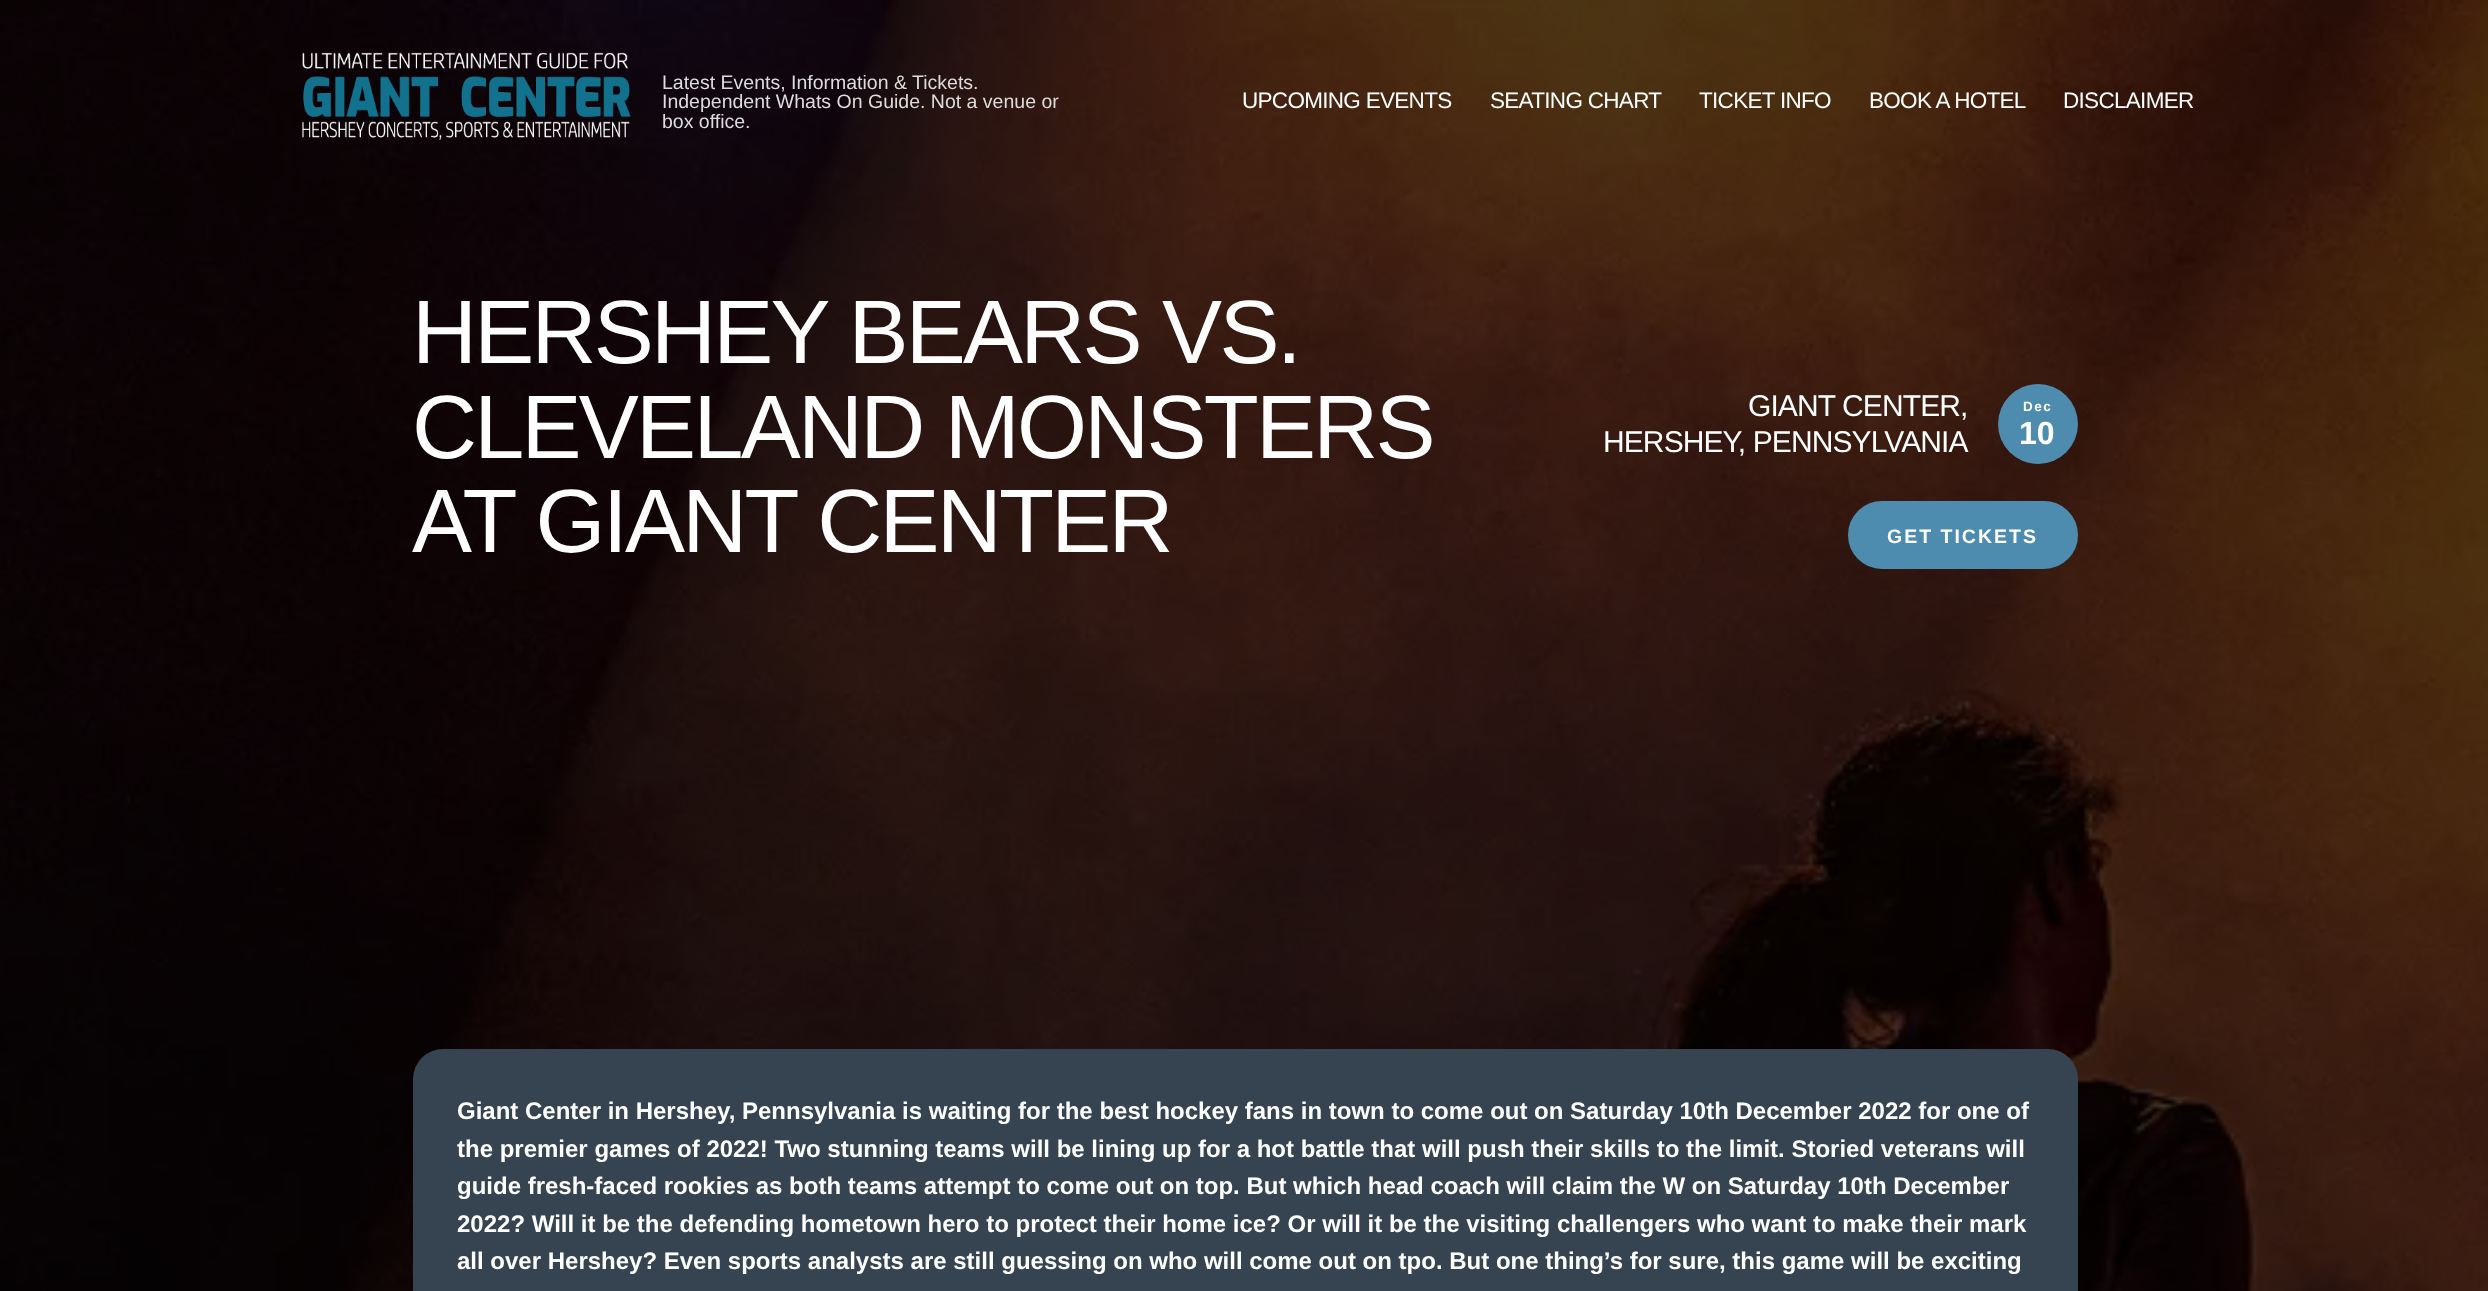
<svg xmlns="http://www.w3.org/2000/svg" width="2488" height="1291">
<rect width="100%" height="100%" fill="#fff"/>
<image x="0" y="0" width="2488" height="1291" href="media/2.png"/>
<image x="302" y="52" width="329" height="88" href="media/1.png"/>
<text x="662" y="89" style="font-family:Liberation Sans;font-size:19.5px;fill:#ddd">Latest Events, Information &amp; Tickets.</text>
<text x="662" y="108" style="font-family:Liberation Sans;font-size:19.5px;fill:#ddd">Independent Whats On Guide. Not a venue or</text>
<text x="662" y="128" style="font-family:Liberation Sans;font-size:19.5px;fill:#ddd">box office.</text>
<text x="1242" y="108" style="font-family:Liberation Sans;font-size:22.5px;letter-spacing:-0.7px;fill:#fff">UPCOMING EVENTS</text>
<text x="1490" y="108" style="font-family:Liberation Sans;font-size:22.5px;letter-spacing:-0.7px;fill:#fff">SEATING CHART</text>
<text x="1699" y="108" style="font-family:Liberation Sans;font-size:22.5px;letter-spacing:-0.7px;fill:#fff">TICKET INFO</text>
<text x="1869" y="108" style="font-family:Liberation Sans;font-size:22.5px;letter-spacing:-0.7px;fill:#fff">BOOK A HOTEL</text>
<text x="2063" y="108" style="font-family:Liberation Sans;font-size:22.5px;letter-spacing:-0.7px;fill:#fff">DISCLAIMER</text>
<text x="412" y="363" style="font-family:Liberation Sans;font-size:90px;letter-spacing:-2.75px;fill:#fff">HERSHEY BEARS VS.</text>
<text x="412" y="458" style="font-family:Liberation Sans;font-size:90px;letter-spacing:-2.75px;fill:#fff">CLEVELAND MONSTERS</text>
<text x="412" y="552" style="font-family:Liberation Sans;font-size:90px;letter-spacing:-2.75px;fill:#fff">AT GIANT CENTER</text>
<text x="1748" y="416" style="font-family:Liberation Sans;font-size:30px;letter-spacing:-0.9px;fill:#fff">GIANT CENTER,</text>
<text x="1603" y="452" style="font-family:Liberation Sans;font-size:30px;letter-spacing:-0.9px;fill:#fff">HERSHEY, PENNSYLVANIA</text>
<circle cx="2038" cy="424" r="40" fill="#4e8caf"/>
<text x="2023" y="411" style="font-family:Liberation Sans;font-size:13.5px;font-weight:bold;letter-spacing:1.5px;fill:#fff">Dec</text>
<text x="2019" y="444" style="font-family:Liberation Sans;font-size:32px;font-weight:bold;fill:#fff">10</text>
<rect x="1849" y="502" width="228" height="66" rx="33" fill="#4e8caf" stroke="#4e8caf" stroke-width="2"/>
<text x="1887" y="543" style="font-family:Liberation Sans;font-size:19.5px;font-weight:bold;letter-spacing:2px;fill:#fff">GET TICKETS</text>
<rect x="413" y="1049" width="1665" height="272" rx="30" fill="#364351"/>
<text x="457" y="1119" style="font-family:Liberation Sans;font-size:24px;font-weight:bold;fill:#fff">Giant Center in Hershey, Pennsylvania is waiting for the best hockey fans in town to come out on Saturday 10th December 2022 for one of</text>
<text x="457" y="1157" style="font-family:Liberation Sans;font-size:24px;font-weight:bold;fill:#fff">the premier games of 2022! Two stunning teams will be lining up for a hot battle that will push their skills to the limit. Storied veterans will</text>
<text x="457" y="1194" style="font-family:Liberation Sans;font-size:24px;font-weight:bold;fill:#fff">guide fresh-faced rookies as both teams attempt to come out on top. But which head coach will claim the W on Saturday 10th December</text>
<text x="457" y="1232" style="font-family:Liberation Sans;font-size:24px;font-weight:bold;fill:#fff">2022? Will it be the defending hometown hero to protect their home ice? Or will it be the visiting challengers who want to make their mark</text>
<text x="457" y="1269" style="font-family:Liberation Sans;font-size:24px;font-weight:bold;fill:#fff">all over Hershey? Even sports analysts are still guessing on who will come out on tpo. But one thing’s for sure, this game will be exciting</text>
</svg>
